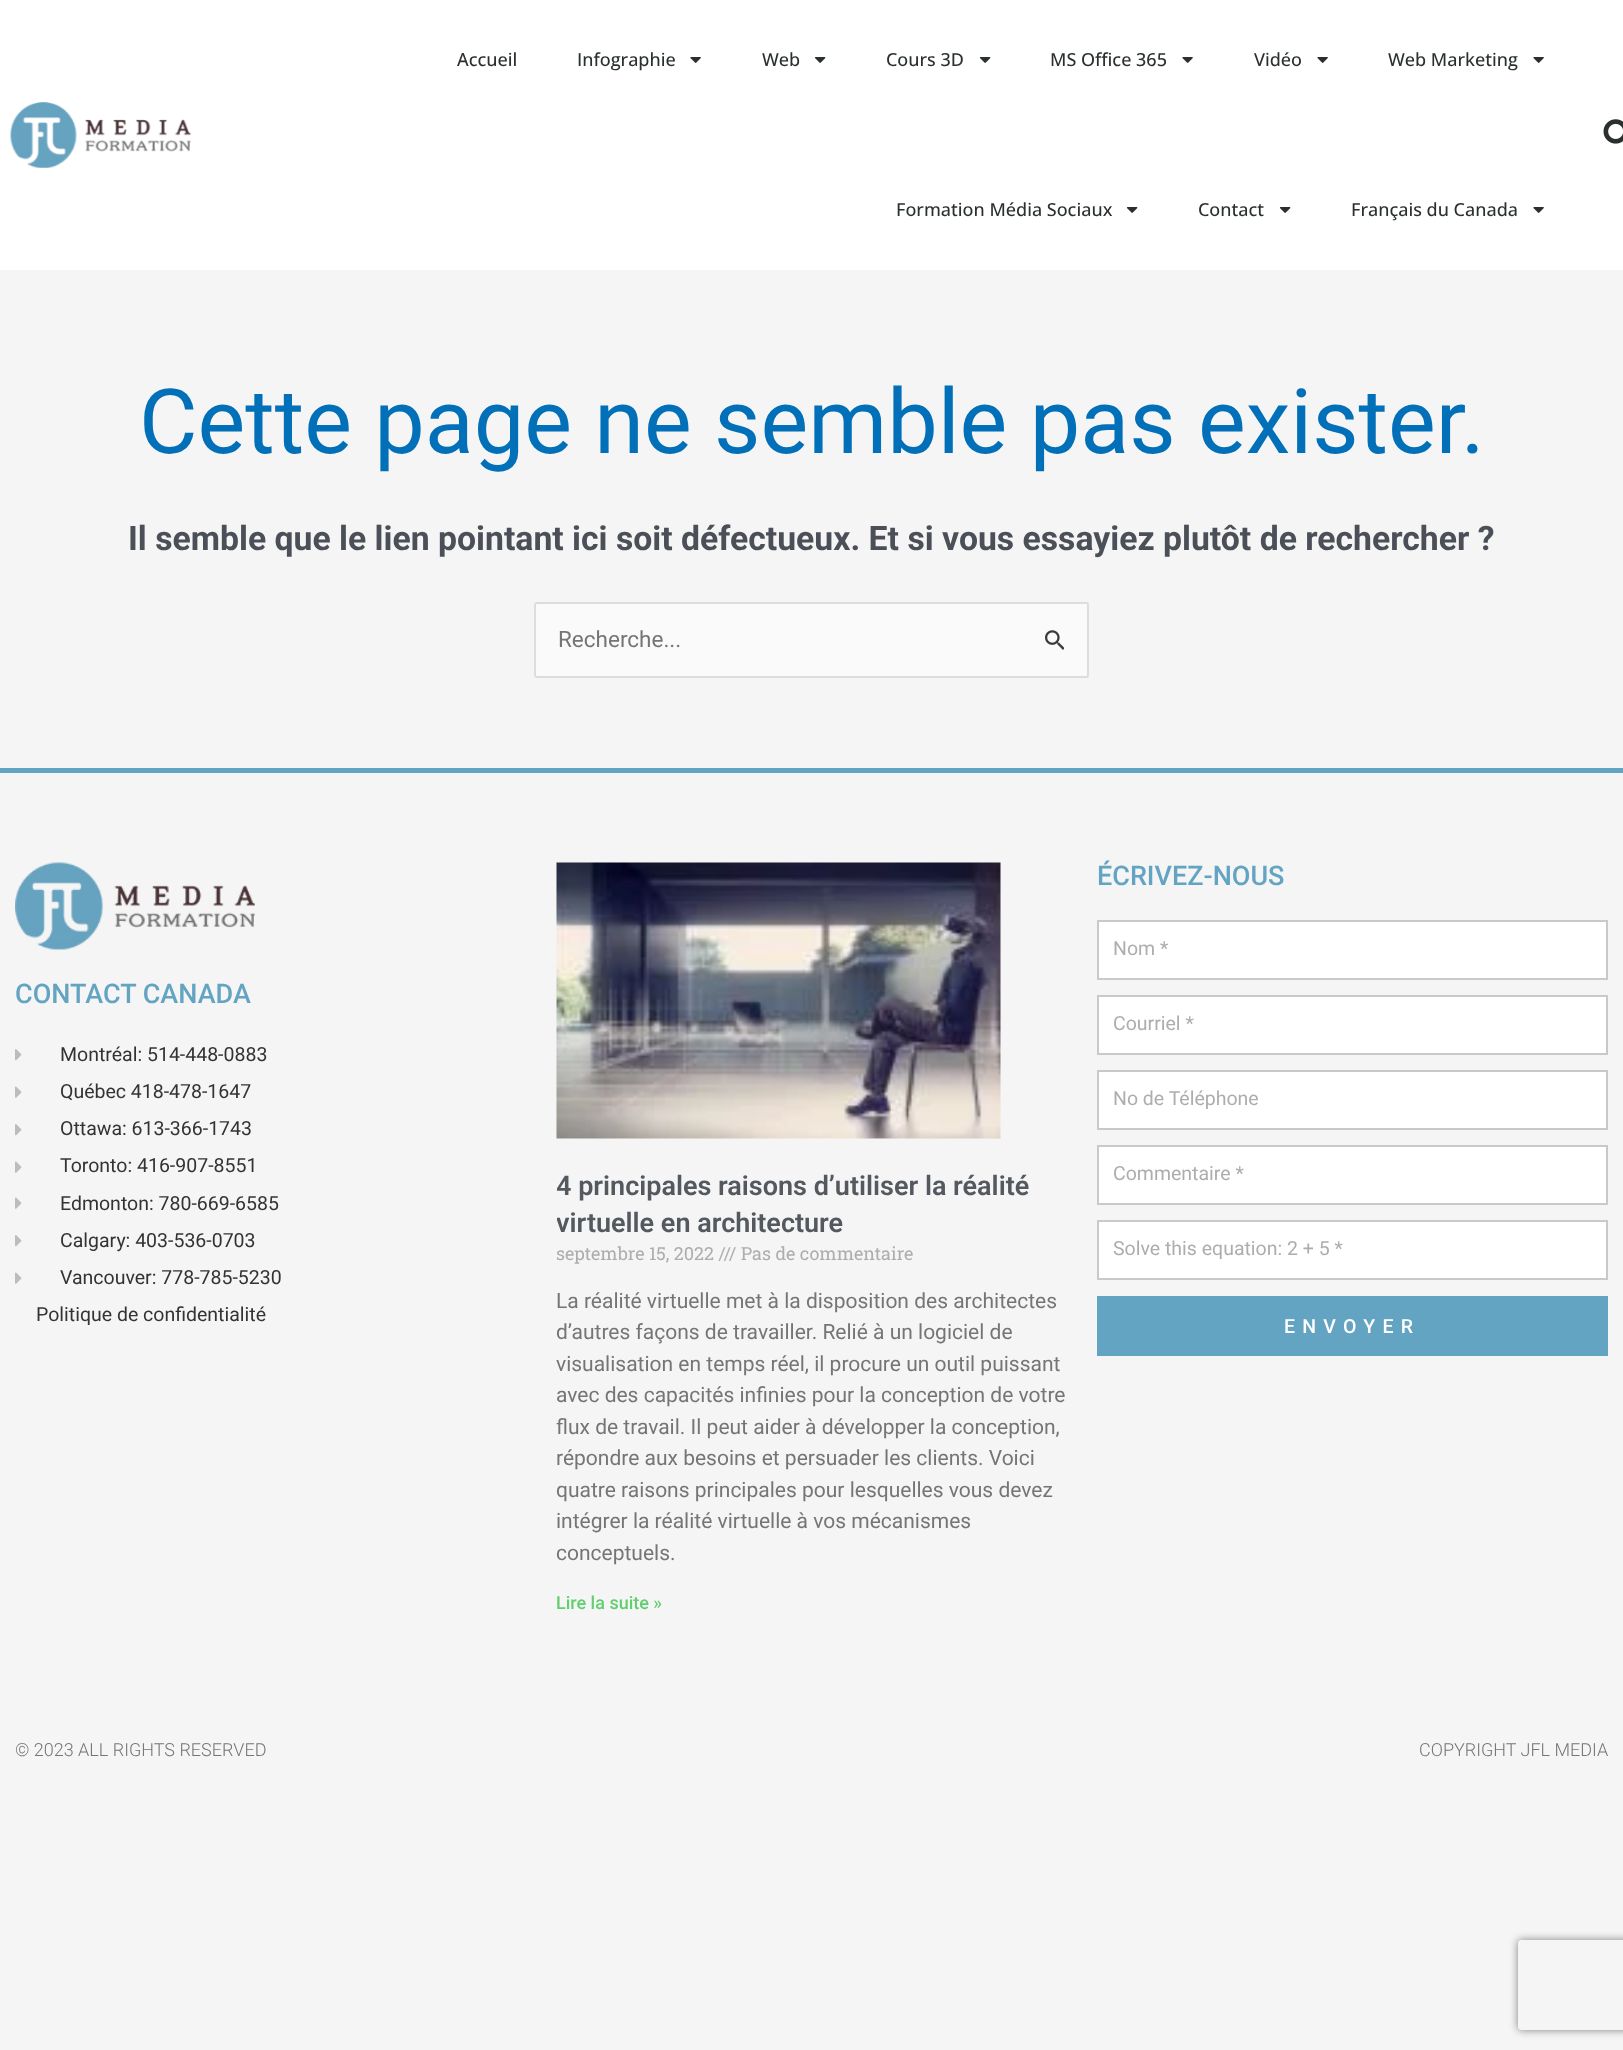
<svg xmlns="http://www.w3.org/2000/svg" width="1623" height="2050">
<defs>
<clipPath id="clip1"><rect x="557" y="863" width="510" height="760"/></clipPath>
<clipPath id="clip2"><path d="M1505 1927h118v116h-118zm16 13h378c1.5 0 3 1.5 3 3v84c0 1.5-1.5 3-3 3h-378c-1.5 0-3-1.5-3-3v-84c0-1.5 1.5-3 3-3z" clip-rule="evenodd"/></clipPath>
</defs>
<rect width="100%" height="100%" fill="#f5f5f5"/>
<rect width="1623" height="270" fill="#fff"/>
<image x="10" y="102" width="181" height="66" href="media/1.png"/>
<text x="457" y="66" style="font-family:Open Sans;font-size:18px;font-weight:500;fill:#2a302f">Accueil</text>
<text x="577" y="66" style="font-family:Open Sans;font-size:18px;font-weight:500;fill:#2a302f">Infographie</text>
<image x="690" y="57" width="11" height="6" href="media/2.png"/>
<text x="762" y="66" style="font-family:Open Sans;font-size:18px;font-weight:500;fill:#2a302f">Web</text>
<image x="814" y="57" width="12" height="6" href="media/3.png"/>
<text x="886" y="66" style="font-family:Open Sans;font-size:18px;font-weight:500;fill:#2a302f">Cours 3D</text>
<image x="979" y="57" width="12" height="6" href="media/3.png"/>
<text x="1050" y="66" style="font-family:Open Sans;font-size:18px;font-weight:500;fill:#2a302f">MS Office 365</text>
<image x="1182" y="57" width="11" height="6" href="media/2.png"/>
<text x="1254" y="66" style="font-family:Open Sans;font-size:18px;font-weight:500;fill:#2a302f">Vidéo</text>
<image x="1317" y="57" width="11" height="6" href="media/2.png"/>
<text x="1388" y="66" style="font-family:Open Sans;font-size:18px;font-weight:500;fill:#2a302f">Web Marketing</text>
<image x="1533" y="57" width="11" height="6" href="media/2.png"/>
<text x="896" y="216" style="font-family:Open Sans;font-size:18px;font-weight:500;fill:#2a302f">Formation Média Sociaux</text>
<image x="1126" y="207" width="12" height="6" href="media/3.png"/>
<text x="1198" y="216" style="font-family:Open Sans;font-size:18px;font-weight:500;fill:#2a302f">Contact</text>
<image x="1279" y="207" width="12" height="6" href="media/3.png"/>
<text x="1351" y="216" style="font-family:Open Sans;font-size:18px;font-weight:500;fill:#2a302f">Français du Canada</text>
<image x="1533" y="207" width="11" height="6" href="media/2.png"/>
<image x="1603" y="119" width="20" height="25" href="media/4.png"/>
<text x="139" y="453" style="font-family:Roboto;font-size:90px;fill:#0170b9">Cette page ne semble pas exister.</text>
<text x="128" y="550" style="font-family:Roboto;font-size:33.75px;font-weight:bold;fill:#4b4f58">Il semble que le lien pointant ici soit défectueux. Et si vous essayiez plutôt de rechercher ?</text>
<rect x="535" y="603" width="553" height="74" rx="2" fill="#fafafa" stroke="#ddd" stroke-width="2"/>
<text x="558" y="647" style="font-family:Roboto;font-size:22.5px;fill:#757575">Recherche...</text>
<image x="1045" y="630" width="19" height="20" href="media/5.png"/>
<rect y="768" width="1623" height="5" fill="#64a4c3"/>
<image x="15" y="862" width="240" height="88" href="media/6.png"/>
<text x="15" y="1003" style="font-family:Roboto;font-size:27px;font-weight:500;fill:#64a4c3">CONTACT CANADA</text>
<image x="15" y="1049" width="7" height="12" href="media/7.png"/>
<text x="60" y="1061" style="font-family:Roboto;font-size:19.5px;fill:#333">Montréal: 514-448-0883</text>
<image x="15" y="1086" width="7" height="12" href="media/8.png"/>
<text x="60" y="1098" style="font-family:Roboto;font-size:19.5px;fill:#333">Québec 418-478-1647</text>
<image x="15" y="1124" width="7" height="12" href="media/7.png"/>
<text x="60" y="1135" style="font-family:Roboto;font-size:19.5px;fill:#333">Ottawa: 613-366-1743</text>
<image x="15" y="1161" width="7" height="12" href="media/8.png"/>
<text x="60" y="1172" style="font-family:Roboto;font-size:19.5px;fill:#333">Toronto: 416-907-8551</text>
<image x="15" y="1197" width="7" height="12" href="media/8.png"/>
<text x="60" y="1210" style="font-family:Roboto;font-size:19.5px;fill:#333">Edmonton: 780-669-6585</text>
<image x="15" y="1235" width="7" height="12" href="media/7.png"/>
<text x="60" y="1247" style="font-family:Roboto;font-size:19.5px;fill:#333">Calgary: 403-536-0703</text>
<image x="15" y="1272" width="7" height="12" href="media/8.png"/>
<text x="60" y="1284" style="font-family:Roboto;font-size:19.5px;fill:#333">Vancouver: 778-785-5230</text>
<text x="36" y="1321" style="font-family:Roboto;font-size:19.5px;fill:#333">Politique de confidentialité</text>
<image x="556" y="862" width="445" height="277" href="media/9.png"/>
<g clip-path="url(#clip1)">
<text x="556" y="1195" style="font-family:Roboto;font-size:27px;font-weight:600;fill:#54595f">4 principales raisons d’utiliser la réalité</text>
<text x="556" y="1232" style="font-family:Roboto;font-size:27px;font-weight:600;fill:#54595f">virtuelle en architecture</text>
</g>
<text x="556" y="1260" style="font-family:Roboto Slab;font-size:18px;fill:#adadad">septembre 15, 2022 /// Pas de commentaire</text>
<text x="556" y="1308" style="font-family:Roboto;font-size:21px;fill:#757575">La réalité virtuelle met à la disposition des architectes</text>
<text x="556" y="1339" style="font-family:Roboto;font-size:21px;fill:#757575">d’autres façons de travailler. Relié à un logiciel de</text>
<text x="556" y="1371" style="font-family:Roboto;font-size:21px;fill:#757575">visualisation en temps réel, il procure un outil puissant</text>
<text x="556" y="1402" style="font-family:Roboto;font-size:21px;fill:#757575">avec des capacités infinies pour la conception de votre</text>
<text x="556" y="1434" style="font-family:Roboto;font-size:21px;fill:#757575">flux de travail. Il peut aider à développer la conception,</text>
<text x="556" y="1465" style="font-family:Roboto;font-size:21px;fill:#757575">répondre aux besoins et persuader les clients. Voici</text>
<text x="556" y="1497" style="font-family:Roboto;font-size:21px;fill:#757575">quatre raisons principales pour lesquelles vous devez</text>
<text x="556" y="1528" style="font-family:Roboto;font-size:21px;fill:#757575">intégrer la réalité virtuelle à vos mécanismes</text>
<text x="556" y="1560" style="font-family:Roboto;font-size:21px;fill:#757575">conceptuels.</text>
<text x="556" y="1609" style="font-family:Roboto;font-size:18px;font-weight:500;fill:#61ce70">Lire la suite »</text>
<text x="1097" y="885" style="font-family:Roboto;font-size:27px;font-weight:500;fill:#64a4c3">ÉCRIVEZ-NOUS</text>
<rect x="1098" y="921" width="509" height="58" fill="#fff" stroke="#c9c9c9" stroke-width="2"/>
<text x="1113" y="955" style="font-family:Roboto;font-size:19.5px;fill:#adadad">Nom *</text>
<rect x="1098" y="996" width="509" height="58" fill="#fff" stroke="#c9c9c9" stroke-width="2"/>
<text x="1113" y="1030" style="font-family:Roboto;font-size:19.5px;fill:#adadad">Courriel *</text>
<rect x="1098" y="1071" width="509" height="58" fill="#fff" stroke="#c9c9c9" stroke-width="2"/>
<text x="1113" y="1105" style="font-family:Roboto;font-size:19.5px;fill:#adadad">No de Téléphone</text>
<rect x="1098" y="1146" width="509" height="58" fill="#fff" stroke="#c9c9c9" stroke-width="2"/>
<text x="1113" y="1180" style="font-family:Roboto;font-size:19.5px;fill:#adadad">Commentaire *</text>
<rect x="1098" y="1221" width="509" height="58" fill="#fff" stroke="#c9c9c9" stroke-width="2"/>
<text x="1113" y="1255" style="font-family:Roboto;font-size:19.5px;fill:#adadad">Solve this equation: 2 + 5 *</text>
<rect x="1097" y="1296" width="511" height="60" fill="#64a4c3"/>
<text x="1284" y="1333" style="font-family:Roboto;font-size:19.5px;font-weight:500;letter-spacing:7.25px;fill:#fff">ENVOYER</text>
<g clip-path="url(#clip2)">
<rect x="1518" y="1940" width="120" height="90" rx="3" fill="#808080" filter="blur(4px)"/>
</g>
<text x="15" y="1756" style="font-family:Roboto;font-size:18px;font-weight:300;fill:#757575">© 2023 ALL RIGHTS RESERVED</text>
<text x="1419" y="1756" style="font-family:Roboto;font-size:18px;font-weight:300;fill:#757575">COPYRIGHT JFL MEDIA</text>
</svg>
